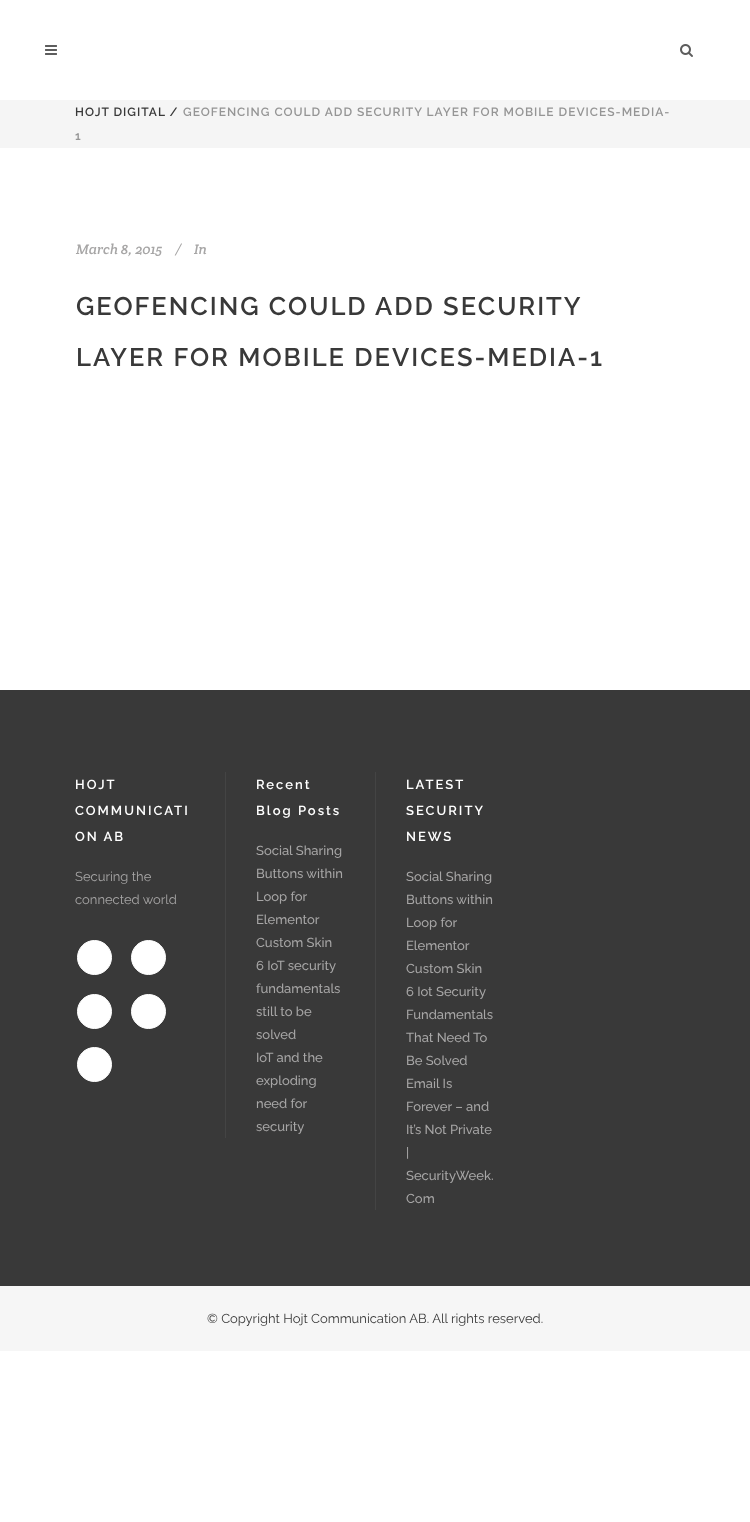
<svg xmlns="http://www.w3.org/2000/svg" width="750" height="1522">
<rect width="100%" height="100%" fill="#fff"/>
<image x="45" y="45" width="12" height="10" href="media/1.png"/>
<image x="680" y="44" width="13" height="13" href="media/2.png"/>
<rect y="100" width="750" height="48" fill="#f5f5f5"/>
<text x="75" y="116" style="font-family:Raleway;font-size:12px;font-weight:600;letter-spacing:1px;fill:#393939">HOJT DIGITAL /</text>
<text x="183" y="116" style="font-family:Raleway;font-size:12px;font-weight:600;letter-spacing:1px;fill:#959595">GEOFENCING COULD ADD SECURITY LAYER FOR MOBILE DEVICES-MEDIA-</text>
<text x="75" y="140" style="font-family:Raleway;font-size:12px;font-weight:600;letter-spacing:1px;fill:#959595">1</text>
<text x="76" y="254" style="font-family:Crete Round;font-size:14px;font-style:italic;fill:#a7a6a6">March 8, 2015</text>
<text x="175" y="254" style="font-family:Crete Round;font-size:14px;font-style:italic;fill:#a7a6a6">/</text>
<text x="194" y="254" style="font-family:Crete Round;font-size:14px;font-style:italic;fill:#a7a6a6">In</text>
<text x="76" y="315" style="font-family:Raleway;font-size:25.5px;font-weight:600;letter-spacing:2px;fill:#393939">GEOFENCING COULD ADD SECURITY</text>
<text x="76" y="366" style="font-family:Raleway;font-size:25.5px;font-weight:600;letter-spacing:2px;fill:#393939">LAYER FOR MOBILE DEVICES-MEDIA-1</text>
<rect y="690" width="750" height="596" fill="#393939"/>
<text x="75" y="789" style="font-family:Raleway;font-size:13px;font-weight:600;letter-spacing:2px;fill:#fff">HOJT</text>
<text x="75" y="815" style="font-family:Raleway;font-size:13px;font-weight:600;letter-spacing:2px;fill:#fff">COMMUNICATI</text>
<text x="75" y="841" style="font-family:Raleway;font-size:13px;font-weight:600;letter-spacing:2px;fill:#fff">ON AB</text>
<text x="75" y="881" style="font-family:Raleway;font-size:13px;fill:#a7a6a6">Securing the</text>
<text x="75" y="904" style="font-family:Raleway;font-size:13px;fill:#a7a6a6">connected world</text>
<circle cx="94.5" cy="957.5" r="17" fill="#fff" stroke="#fff"/>
<circle cx="148.5" cy="957.5" r="17" fill="#fff" stroke="#fff"/>
<circle cx="94.5" cy="1011.5" r="17" fill="#fff" stroke="#fff"/>
<circle cx="148.5" cy="1011.5" r="17" fill="#fff" stroke="#fff"/>
<circle cx="94.5" cy="1064.5" r="17" fill="#fff" stroke="#fff"/>
<rect x="225" y="772" width="1" height="366" fill="#444"/>
<text x="256" y="789" style="font-family:Raleway;font-size:13px;font-weight:600;letter-spacing:2px;fill:#fff">Recent</text>
<text x="256" y="815" style="font-family:Raleway;font-size:13px;font-weight:600;letter-spacing:2px;fill:#fff">Blog Posts</text>
<text x="256" y="855" style="font-family:Raleway;font-size:13px;font-weight:500;fill:#a7a6a6">Social Sharing</text>
<text x="256" y="878" style="font-family:Raleway;font-size:13px;font-weight:500;fill:#a7a6a6">Buttons within</text>
<text x="256" y="901" style="font-family:Raleway;font-size:13px;font-weight:500;fill:#a7a6a6">Loop for</text>
<text x="256" y="924" style="font-family:Raleway;font-size:13px;font-weight:500;fill:#a7a6a6">Elementor</text>
<text x="256" y="947" style="font-family:Raleway;font-size:13px;font-weight:500;fill:#a7a6a6">Custom Skin</text>
<text x="256" y="970" style="font-family:Raleway;font-size:13px;font-weight:500;fill:#a7a6a6">6 IoT security</text>
<text x="256" y="993" style="font-family:Raleway;font-size:13px;font-weight:500;fill:#a7a6a6">fundamentals</text>
<text x="256" y="1016" style="font-family:Raleway;font-size:13px;font-weight:500;fill:#a7a6a6">still to be</text>
<text x="256" y="1039" style="font-family:Raleway;font-size:13px;font-weight:500;fill:#a7a6a6">solved</text>
<text x="256" y="1062" style="font-family:Raleway;font-size:13px;font-weight:500;fill:#a7a6a6">IoT and the</text>
<text x="256" y="1085" style="font-family:Raleway;font-size:13px;font-weight:500;fill:#a7a6a6">exploding</text>
<text x="256" y="1108" style="font-family:Raleway;font-size:13px;font-weight:500;fill:#a7a6a6">need for</text>
<text x="256" y="1131" style="font-family:Raleway;font-size:13px;font-weight:500;fill:#a7a6a6">security</text>
<rect x="375" y="772" width="1" height="438" fill="#444"/>
<text x="406" y="789" style="font-family:Raleway;font-size:13px;font-weight:600;letter-spacing:2px;fill:#fff">LATEST</text>
<text x="406" y="815" style="font-family:Raleway;font-size:13px;font-weight:600;letter-spacing:2px;fill:#fff">SECURITY</text>
<text x="406" y="841" style="font-family:Raleway;font-size:13px;font-weight:600;letter-spacing:2px;fill:#fff">NEWS</text>
<text x="406" y="881" style="font-family:Raleway;font-size:13px;font-weight:500;fill:#a7a6a6">Social Sharing</text>
<text x="406" y="904" style="font-family:Raleway;font-size:13px;font-weight:500;fill:#a7a6a6">Buttons within</text>
<text x="406" y="927" style="font-family:Raleway;font-size:13px;font-weight:500;fill:#a7a6a6">Loop for</text>
<text x="406" y="950" style="font-family:Raleway;font-size:13px;font-weight:500;fill:#a7a6a6">Elementor</text>
<text x="406" y="973" style="font-family:Raleway;font-size:13px;font-weight:500;fill:#a7a6a6">Custom Skin</text>
<text x="406" y="996" style="font-family:Raleway;font-size:13px;font-weight:500;fill:#a7a6a6">6 Iot Security</text>
<text x="406" y="1019" style="font-family:Raleway;font-size:13px;font-weight:500;fill:#a7a6a6">Fundamentals</text>
<text x="406" y="1042" style="font-family:Raleway;font-size:13px;font-weight:500;fill:#a7a6a6">That Need To</text>
<text x="406" y="1065" style="font-family:Raleway;font-size:13px;font-weight:500;fill:#a7a6a6">Be Solved</text>
<text x="406" y="1088" style="font-family:Raleway;font-size:13px;font-weight:500;fill:#a7a6a6">Email Is</text>
<text x="406" y="1111" style="font-family:Raleway;font-size:13px;font-weight:500;fill:#a7a6a6">Forever – and</text>
<text x="406" y="1134" style="font-family:Raleway;font-size:13px;font-weight:500;fill:#a7a6a6">It’s Not Private</text>
<text x="406" y="1157" style="font-family:Raleway;font-size:13px;font-weight:500;fill:#a7a6a6">|</text>
<text x="406" y="1180" style="font-family:Raleway;font-size:13px;font-weight:500;fill:#a7a6a6">SecurityWeek.</text>
<text x="406" y="1203" style="font-family:Raleway;font-size:13px;font-weight:500;fill:#a7a6a6">Com</text>
<rect y="1286" width="750" height="65" fill="#f6f6f6"/>
<text x="207" y="1323" style="font-family:Raleway;font-size:13px;fill:#393939">© Copyright Hojt Communication AB. All rights reserved.</text>
</svg>
